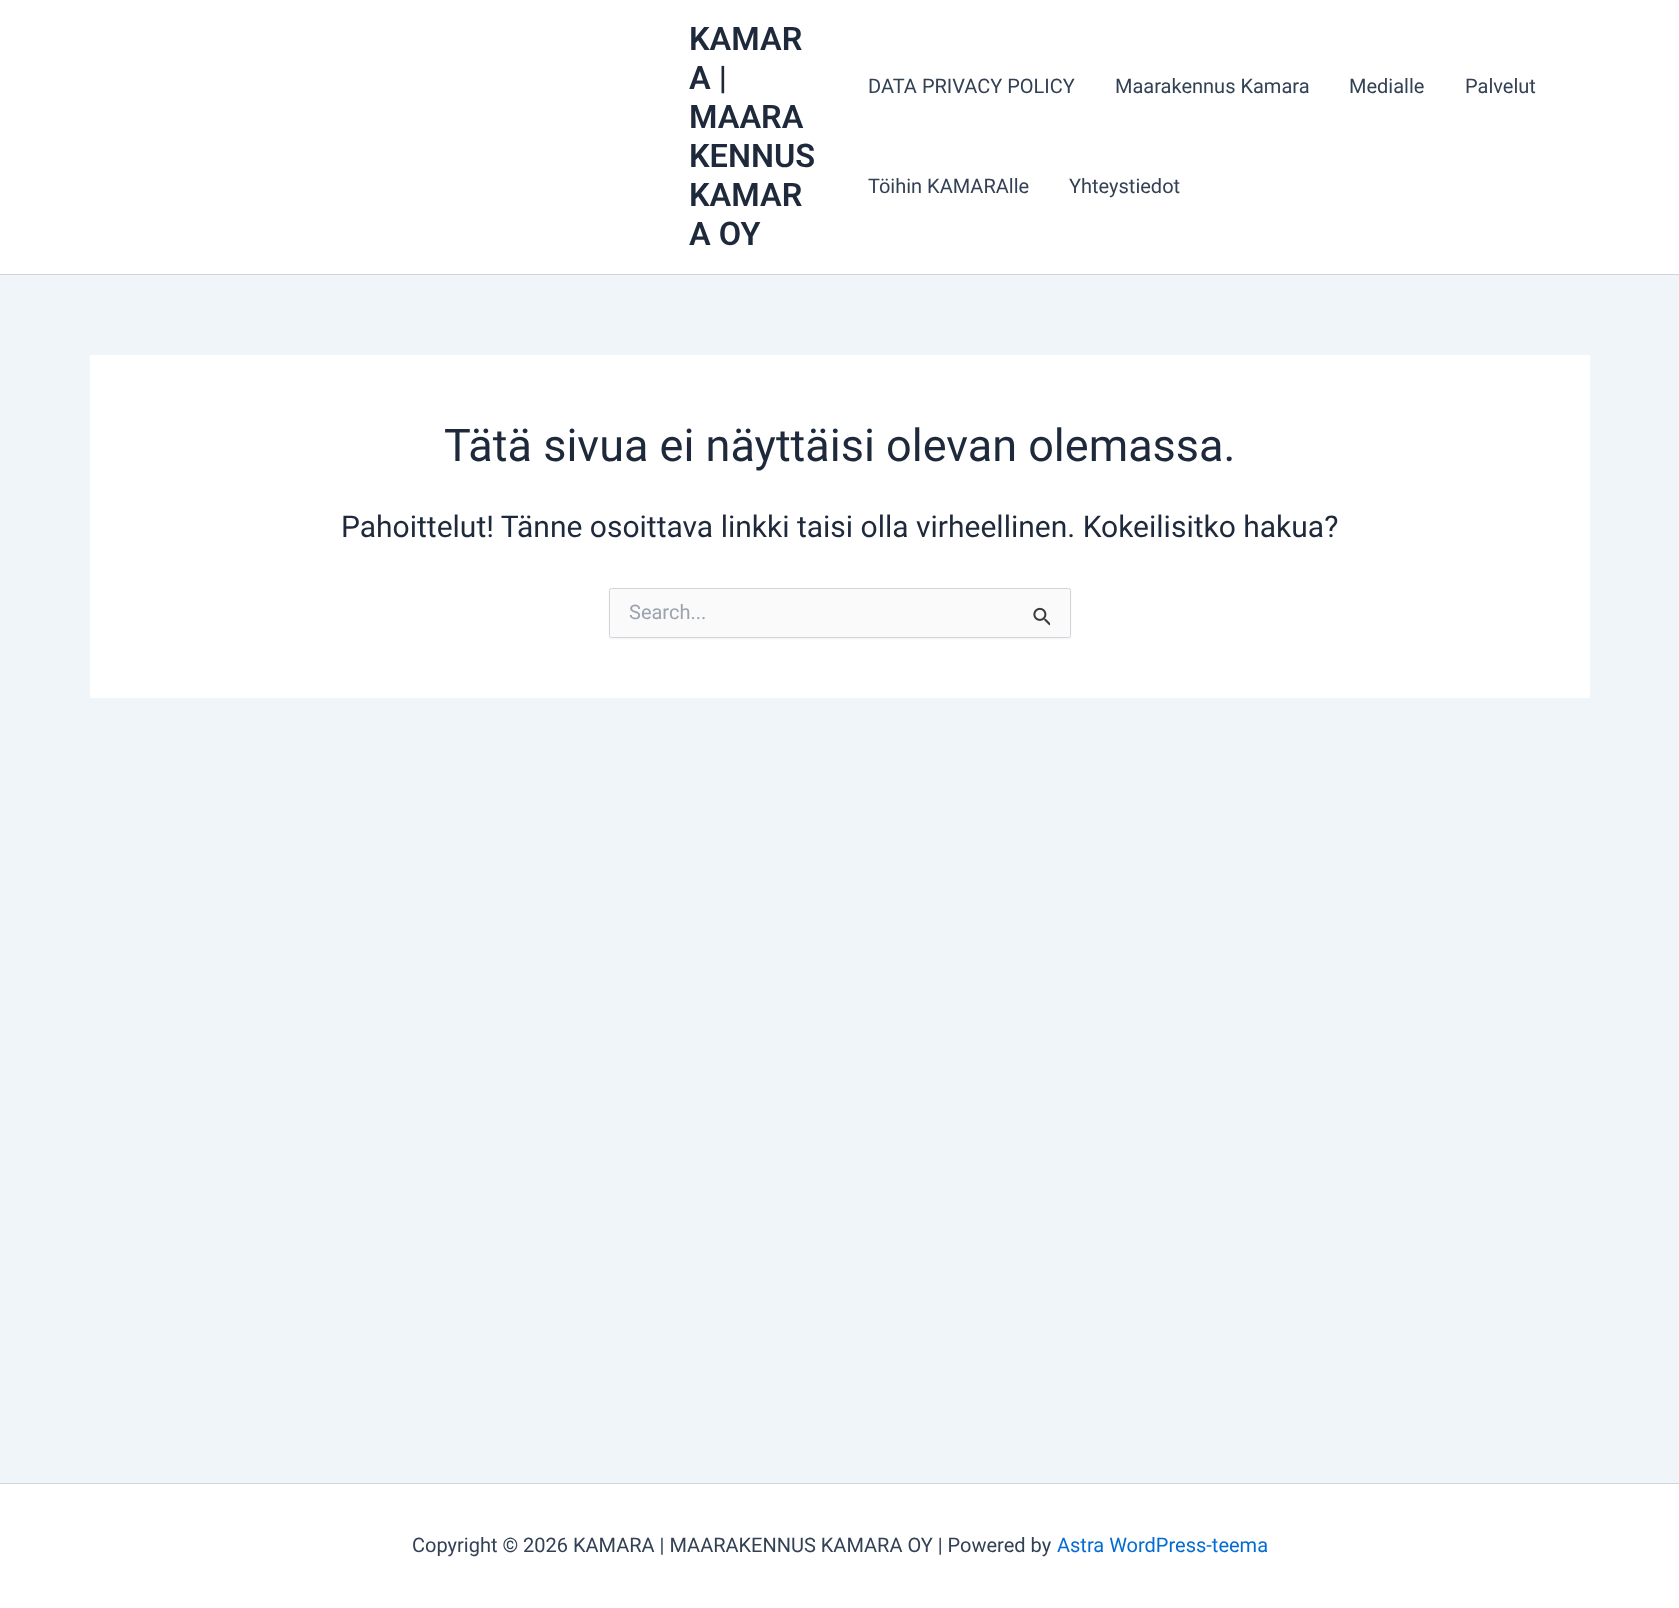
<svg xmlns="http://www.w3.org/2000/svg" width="1679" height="1608">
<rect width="100%" height="100%" fill="#f0f5fa"/>
<rect width="1679" height="274" fill="#fff"/>
<rect y="274" width="1679" height="1" fill="#d1d5db"/>
<text x="689" y="50" style="font-family:Roboto;font-size:32.5px;font-weight:600;fill:#1e293b">KAMAR</text>
<text x="689" y="89" style="font-family:Roboto;font-size:32.5px;font-weight:600;fill:#1e293b">A |</text>
<text x="689" y="128" style="font-family:Roboto;font-size:32.5px;font-weight:600;fill:#1e293b">MAARA</text>
<text x="689" y="167" style="font-family:Roboto;font-size:32.5px;font-weight:600;fill:#1e293b">KENNUS</text>
<text x="689" y="206" style="font-family:Roboto;font-size:32.5px;font-weight:600;fill:#1e293b">KAMAR</text>
<text x="689" y="245" style="font-family:Roboto;font-size:32.5px;font-weight:600;fill:#1e293b">A OY</text>
<text x="868" y="93" style="font-family:Roboto;font-size:20px;fill:#334155">DATA PRIVACY POLICY</text>
<text x="1115" y="93" style="font-family:Roboto;font-size:20px;fill:#334155">Maarakennus Kamara</text>
<text x="1349" y="93" style="font-family:Roboto;font-size:20px;fill:#334155">Medialle</text>
<text x="1465" y="93" style="font-family:Roboto;font-size:20px;fill:#334155">Palvelut</text>
<text x="868" y="193" style="font-family:Roboto;font-size:20px;fill:#334155">Töihin KAMARAlle</text>
<text x="1069" y="193" style="font-family:Roboto;font-size:20px;fill:#334155">Yhteystiedot</text>
<rect x="90" y="355" width="1500" height="343" fill="#fff"/>
<text x="444" y="461" style="font-family:Roboto;font-size:45px;fill:#1e293b">Tätä sivua ei näyttäisi olevan olemassa.</text>
<text x="341" y="537" style="font-family:Roboto;font-size:30px;fill:#1e293b">Pahoittelut! Tänne osoittava linkki taisi olla virheellinen. Kokeilisitko hakua?</text>
<rect x="609" y="589" width="462" height="50" rx="2.5" fill="#0000000d" filter="blur(1px)"/>
<rect x="609.5" y="588.5" width="461" height="49" rx="2" fill="#fafafa" stroke="#d1d5db"/>
<text x="629" y="619" style="font-family:Roboto;font-size:20px;fill:#9ca3af">Search...</text>
<image x="1033" y="607" width="17" height="19" href="media/1.png"/>
<rect y="1484" width="1679" height="124" fill="#fff"/>
<rect y="1483" width="1679" height="1" fill="#d1d5db"/>
<text x="412" y="1552" style="font-family:Roboto;font-size:20px;fill:#334155">Copyright © 2026 KAMARA | MAARAKENNUS KAMARA OY | Powered by</text>
<text x="1057" y="1552" style="font-family:Roboto;font-size:20px;fill:#046bd2">Astra WordPress-teema</text>
</svg>
